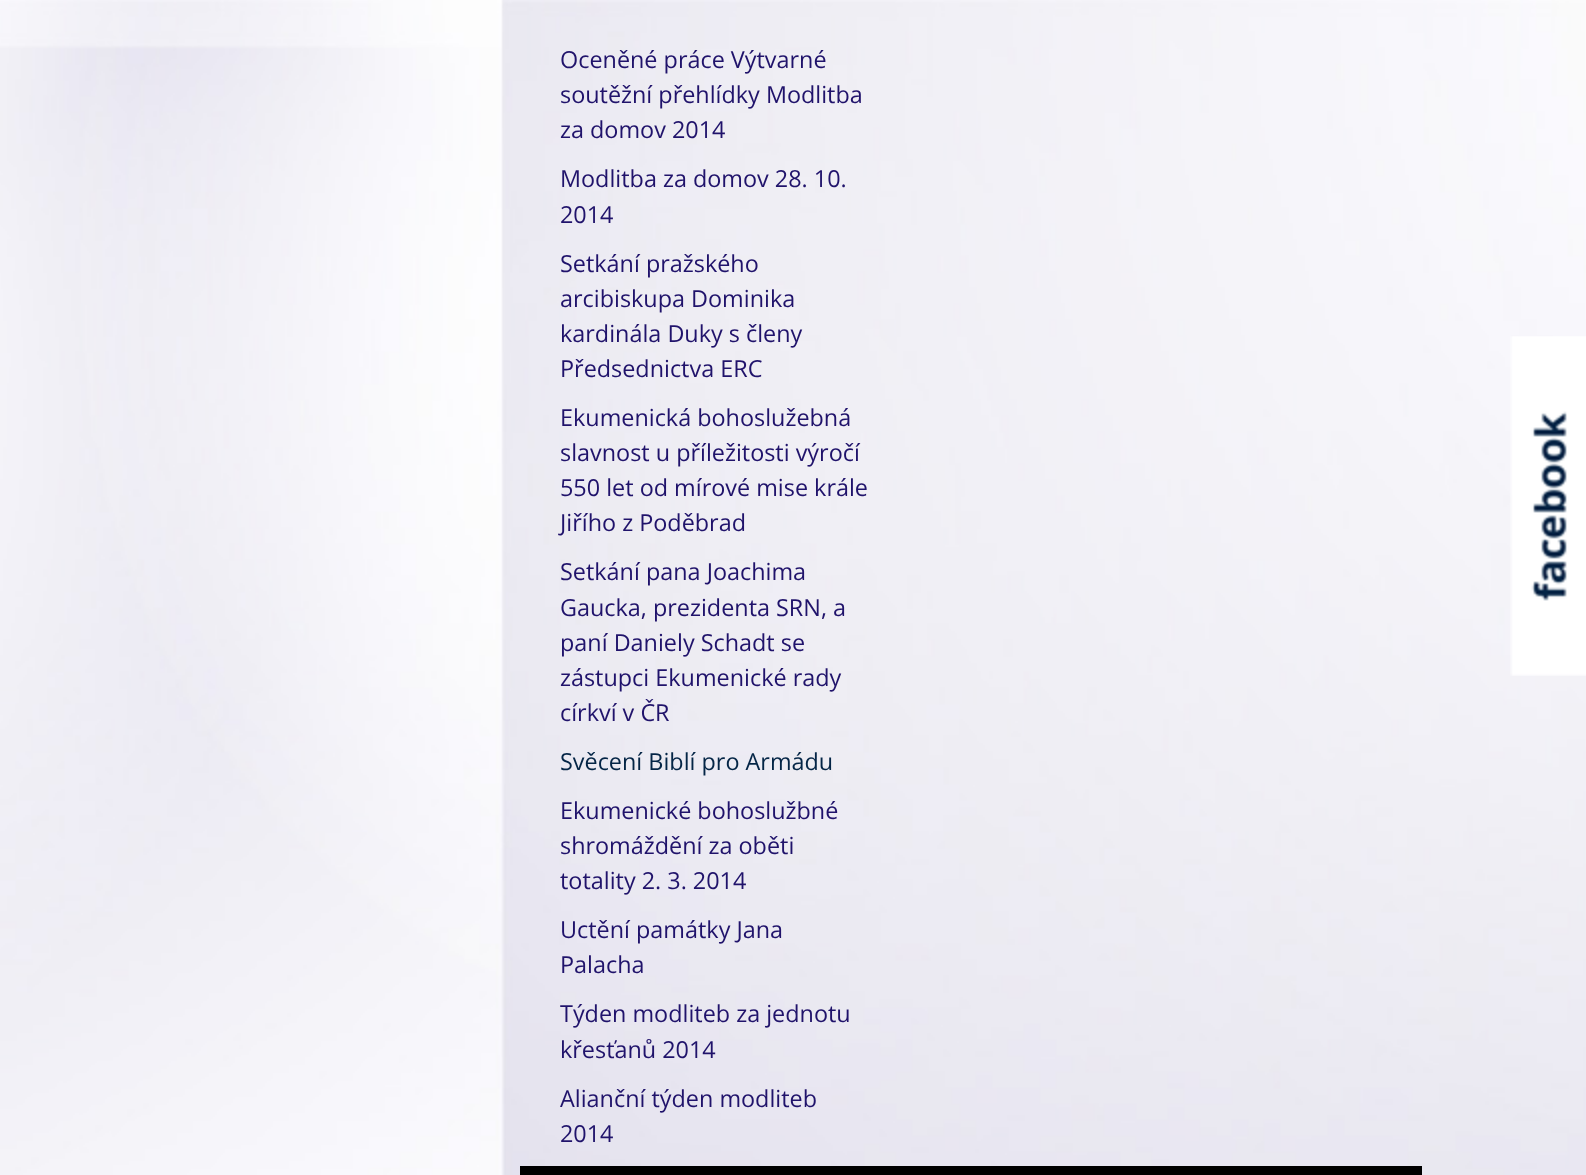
<svg xmlns="http://www.w3.org/2000/svg" width="1586" height="1175">
<rect width="100%" height="100%" fill="#fff"/>
<image x="0" y="0" width="1586" height="1175" href="media/1.png"/>
<text x="560" y="68" style="font-family:Open Sans;font-size:23.4px;fill:#20136b">Oceněné práce Výtvarné</text>
<text x="560" y="103" style="font-family:Open Sans;font-size:23.4px;fill:#20136b">soutěžní přehlídky Modlitba</text>
<text x="560" y="138" style="font-family:Open Sans;font-size:23.4px;fill:#20136b">za domov 2014</text>
<text x="560" y="187" style="font-family:Open Sans;font-size:23.4px;fill:#20136b">Modlitba za domov 28. 10.</text>
<text x="560" y="223" style="font-family:Open Sans;font-size:23.4px;fill:#20136b">2014</text>
<text x="560" y="272" style="font-family:Open Sans;font-size:23.4px;fill:#20136b">Setkání pražského</text>
<text x="560" y="307" style="font-family:Open Sans;font-size:23.4px;fill:#20136b">arcibiskupa Dominika</text>
<text x="560" y="342" style="font-family:Open Sans;font-size:23.4px;fill:#20136b">kardinála Duky s členy</text>
<text x="560" y="377" style="font-family:Open Sans;font-size:23.4px;fill:#20136b">Předsednictva ERC</text>
<text x="560" y="426" style="font-family:Open Sans;font-size:23.4px;fill:#20136b">Ekumenická bohoslužebná</text>
<text x="560" y="461" style="font-family:Open Sans;font-size:23.4px;fill:#20136b">slavnost u příležitosti výročí</text>
<text x="560" y="496" style="font-family:Open Sans;font-size:23.4px;fill:#20136b">550 let od mírové mise krále</text>
<text x="560" y="531" style="font-family:Open Sans;font-size:23.4px;fill:#20136b">Jiřího z Poděbrad</text>
<text x="560" y="580" style="font-family:Open Sans;font-size:23.4px;fill:#20136b">Setkání pana Joachima</text>
<text x="560" y="616" style="font-family:Open Sans;font-size:23.4px;fill:#20136b">Gaucka, prezidenta SRN, a</text>
<text x="560" y="651" style="font-family:Open Sans;font-size:23.4px;fill:#20136b">paní Daniely Schadt se</text>
<text x="560" y="686" style="font-family:Open Sans;font-size:23.4px;fill:#20136b">zástupci Ekumenické rady</text>
<text x="560" y="721" style="font-family:Open Sans;font-size:23.4px;fill:#20136b">církví v ČR</text>
<text x="560" y="770" style="font-family:Open Sans;font-size:23.4px;fill:#042546">Svěcení Biblí pro Armádu</text>
<text x="560" y="819" style="font-family:Open Sans;font-size:23.4px;fill:#20136b">Ekumenické bohoslužbné</text>
<text x="560" y="854" style="font-family:Open Sans;font-size:23.4px;fill:#20136b">shromáždění za oběti</text>
<text x="560" y="889" style="font-family:Open Sans;font-size:23.4px;fill:#20136b">totality 2. 3. 2014</text>
<text x="560" y="938" style="font-family:Open Sans;font-size:23.4px;fill:#20136b">Uctění památky Jana</text>
<text x="560" y="973" style="font-family:Open Sans;font-size:23.4px;fill:#20136b">Palacha</text>
<text x="560" y="1022" style="font-family:Open Sans;font-size:23.4px;fill:#20136b">Týden modliteb za jednotu</text>
<text x="560" y="1058" style="font-family:Open Sans;font-size:23.4px;fill:#20136b">křesťanů 2014</text>
<text x="560" y="1107" style="font-family:Open Sans;font-size:23.4px;fill:#20136b">Alianční týden modliteb</text>
<text x="560" y="1142" style="font-family:Open Sans;font-size:23.4px;fill:#20136b">2014</text>
<rect x="520" y="1166" width="902" height="9" fill="#000"/>
<image x="1510" y="336" width="76" height="340" href="media/2.png"/>
</svg>
